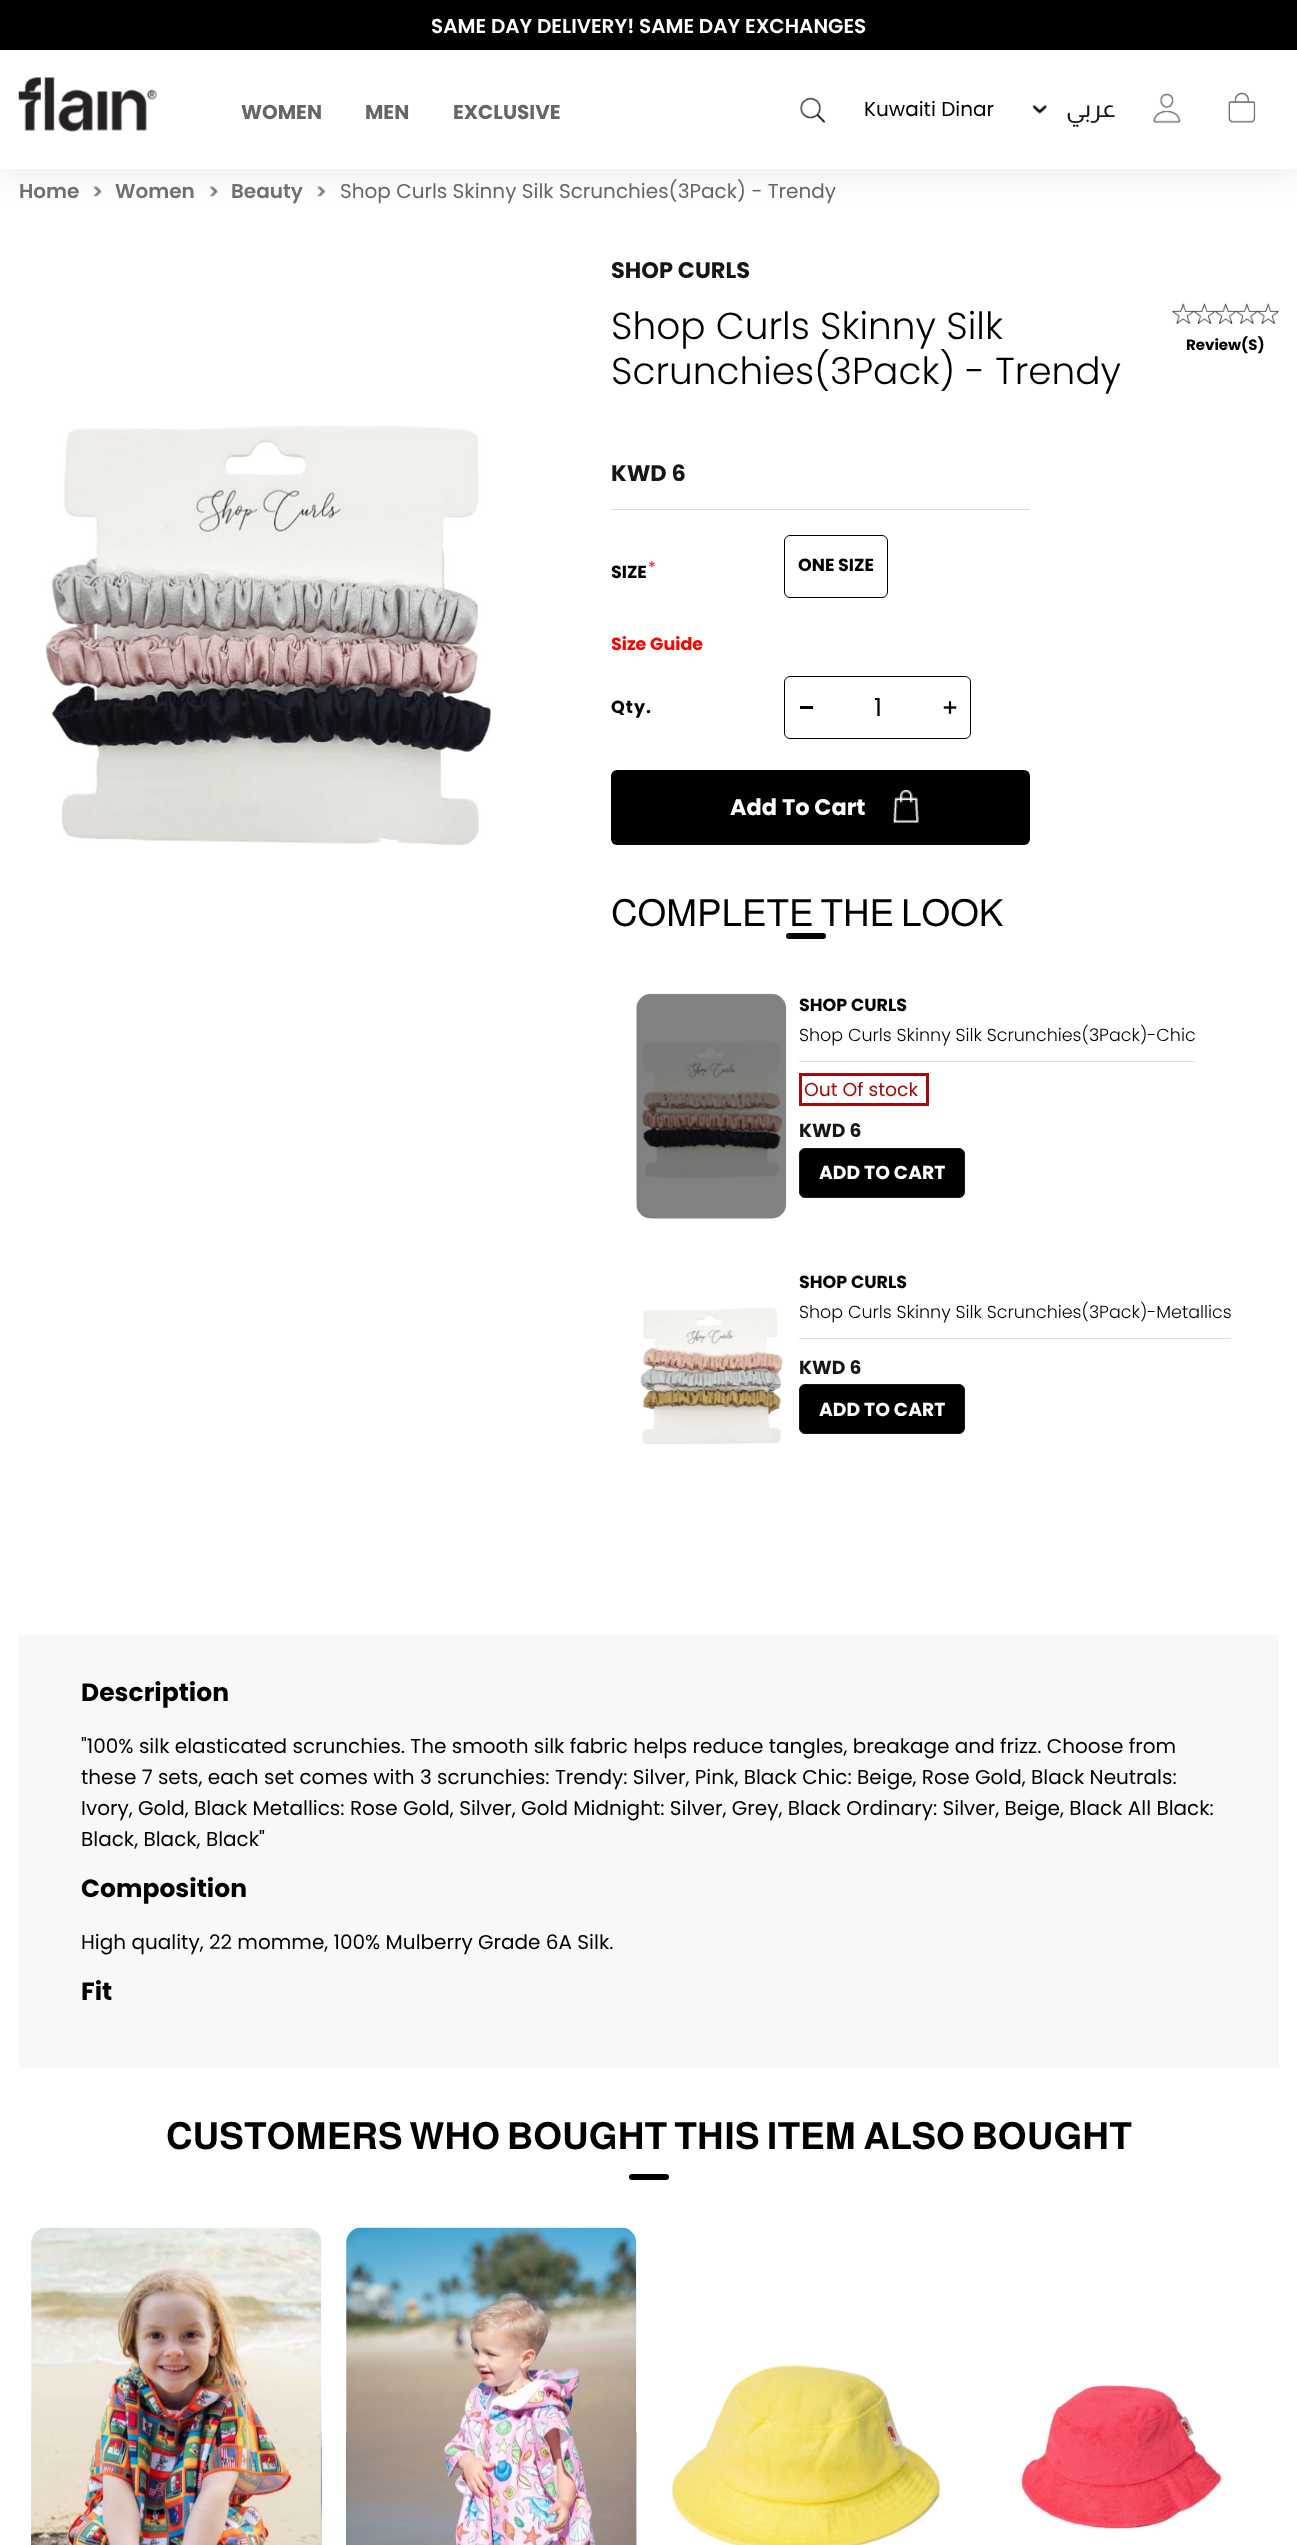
<svg xmlns="http://www.w3.org/2000/svg" width="1297" height="2545">
<rect width="100%" height="100%" fill="#fff"/>
<image x="93" y="186" width="9" height="11" href="media/6.png"/>
<image x="209" y="186" width="10" height="11" href="media/7.png"/>
<image x="316" y="186" width="10" height="11" href="media/8.png"/>
<rect width="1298" height="169" fill="#0000001a" filter="blur(19px)"/>
<rect y="50" width="1297" height="119" fill="#fff"/>
<rect width="1297" height="50" fill="#000"/>
<text x="431" y="33" style="font-family:Poppins;font-size:20px;font-weight:600;fill:#fff">SAME DAY DELIVERY! SAME DAY EXCHANGES</text>
<image x="18" y="77" width="139" height="55" href="media/1.png"/>
<text x="241" y="119" style="font-family:Poppins;font-size:20px;font-weight:bold;fill:#666">WOMEN</text>
<text x="365" y="119" style="font-family:Poppins;font-size:20px;font-weight:bold;fill:#666">MEN</text>
<text x="453" y="119" style="font-family:Poppins;font-size:20px;font-weight:bold;fill:#666">EXCLUSIVE</text>
<image x="800" y="97" width="26" height="26" href="media/2.png"/>
<image x="1032" y="105" width="15" height="9" href="media/3.png"/>
<text x="864" y="116" style="font-family:Poppins;font-size:20px;fill:#000">Kuwaiti Dinar</text>
<text x="1116" y="117" style="font-family:Almarai;font-size:25px;direction:rtl;fill:#171616">عربي</text>
<image x="1153" y="93" width="28" height="31" href="media/4.png"/>
<image x="1228" y="92" width="28" height="31" href="media/5.png"/>
<text x="19" y="198" style="font-family:Poppins;font-size:20px;font-weight:600;fill:#707070">Home</text>
<text x="115" y="198" style="font-family:Poppins;font-size:20px;font-weight:600;fill:#707070">Women</text>
<text x="231" y="198" style="font-family:Poppins;font-size:20px;font-weight:600;fill:#707070">Beauty</text>
<text x="340" y="198" style="font-family:Poppins;font-size:20px;fill:#666">Shop Curls Skinny Silk Scrunchies(3Pack) - Trendy</text>
<image x="45" y="425" width="447" height="421" href="media/9.png"/>
<text x="611" y="278" style="font-family:Poppins;font-size:22.5px;font-weight:bold;fill:#171616">SHOP CURLS</text>
<text x="611" y="339" style="font-family:Poppins;font-size:37.5px;font-weight:300;fill:#000">Shop Curls Skinny Silk</text>
<text x="611" y="384" style="font-family:Poppins;font-size:37.5px;font-weight:300;fill:#000">Scrunchies(3Pack) - Trendy</text>
<image x="1172" y="303" width="107" height="21" href="media/10.png"/>
<text x="1186" y="350" style="font-family:Poppins;font-size:15px;font-weight:bold;fill:#000">Review(S)</text>
<rect x="611" y="509" width="419" height="1" fill="#d9d9d6"/>
<text x="611" y="481" style="font-family:Poppins;font-size:22.5px;font-weight:bold;fill:#171616">KWD 6</text>
<text x="611" y="578" style="font-family:Poppins;font-size:17.5px;font-weight:bold;fill:#000">SIZE</text>
<text x="648" y="573" style="font-family:Poppins;font-size:16px;letter-spacing:1px;fill:#f00">*</text>
<rect x="784.5" y="535.5" width="103" height="62" rx="5.5" fill="none" stroke="#000"/>
<text x="798" y="571" style="font-family:Poppins;font-size:17.5px;font-weight:bold;fill:#000">ONE SIZE</text>
<text x="611" y="650" style="font-family:Poppins;font-size:17.5px;font-weight:bold;fill:#f00">Size Guide</text>
<text x="611" y="713" style="font-family:Poppins;font-size:17.5px;font-weight:bold;letter-spacing:1px;fill:#000">Qty.</text>
<rect x="784.5" y="676.5" width="186" height="62" rx="5.5" fill="none" stroke="#000"/>
<rect x="800" y="706" width="13" height="3" fill="#000"/>
<text x="874" y="716" style="font-family:Poppins;font-size:25px;fill:#000">1</text>
<image x="943" y="701" width="14" height="13" href="media/11.png"/>
<rect x="611" y="770" width="419" height="75" rx="6" fill="#000"/>
<image x="893" y="790" width="26" height="33" href="media/12.png"/>
<text x="730" y="815" style="font-family:Poppins;font-size:22.5px;font-weight:bold;fill:#fff">Add To Cart</text>
<text x="611" y="926" style="font-family:Almarai;font-size:37.5px;fill:#000">COMPLETE THE LOOK</text>
<rect x="786" y="933" width="40" height="6" rx="3" fill="#000"/>
<image x="636" y="993" width="151" height="226" href="media/13.png"/>
<text x="799" y="1011" style="font-family:Poppins;font-size:17.5px;font-weight:bold;fill:#000">SHOP CURLS</text>
<text x="799" y="1041" style="font-family:Poppins;font-size:17.5px;font-weight:300;fill:#000">Shop Curls Skinny Silk Scrunchies(3Pack)-Chic</text>
<rect x="799" y="1061" width="396" height="1" fill="#ddd"/>
<rect x="800.5" y="1074.5" width="127" height="30" fill="none" stroke="#a40909" stroke-width="3"/>
<text x="804" y="1096" style="font-family:Poppins;font-size:18.75px;fill:#a40909">Out Of stock</text>
<text x="799" y="1137" style="font-family:Poppins;font-size:18.75px;font-weight:bold;fill:#171616">KWD 6</text>
<rect x="799.5" y="1148.5" width="165" height="49" rx="5.5" fill="#000" stroke="#171616"/>
<text x="819" y="1179" style="font-family:Poppins;font-size:18.75px;font-weight:bold;fill:#fff">ADD TO CART</text>
<image x="640" y="1307" width="143" height="138" href="media/14.png"/>
<text x="799" y="1288" style="font-family:Poppins;font-size:17.5px;font-weight:bold;fill:#000">SHOP CURLS</text>
<text x="799" y="1318" style="font-family:Poppins;font-size:17.5px;font-weight:300;fill:#000">Shop Curls Skinny Silk Scrunchies(3Pack)-Metallics</text>
<rect x="799" y="1338" width="432" height="1" fill="#ddd"/>
<text x="799" y="1374" style="font-family:Poppins;font-size:18.75px;font-weight:bold;fill:#171616">KWD 6</text>
<rect x="799.5" y="1384.5" width="165" height="49" rx="5.5" fill="#000" stroke="#171616"/>
<text x="819" y="1416" style="font-family:Poppins;font-size:18.75px;font-weight:bold;fill:#fff">ADD TO CART</text>
<rect x="19" y="1635" width="1260" height="433" fill="#f8f8f8"/>
<text x="81" y="1701" style="font-family:Poppins;font-size:25px;font-weight:bold;fill:#000">Description</text>
<text x="81" y="1753" style="font-family:Poppins;font-size:20px;fill:#000">"100% silk elasticated scrunchies. The smooth silk fabric helps reduce tangles, breakage and frizz. Choose from</text>
<text x="81" y="1784" style="font-family:Poppins;font-size:20px;fill:#000">these 7 sets, each set comes with 3 scrunchies: Trendy: Silver, Pink, Black Chic: Beige, Rose Gold, Black Neutrals:</text>
<text x="81" y="1815" style="font-family:Poppins;font-size:20px;fill:#000">Ivory, Gold, Black Metallics: Rose Gold, Silver, Gold Midnight: Silver, Grey, Black Ordinary: Silver, Beige, Black All Black:</text>
<text x="81" y="1846" style="font-family:Poppins;font-size:20px;fill:#000">Black, Black, Black"</text>
<text x="81" y="1897" style="font-family:Poppins;font-size:25px;font-weight:bold;fill:#000">Composition</text>
<text x="81" y="1949" style="font-family:Poppins;font-size:20px;fill:#000">High quality, 22 momme, 100% Mulberry Grade 6A Silk.</text>
<text x="81" y="2000" style="font-family:Poppins;font-size:25px;font-weight:bold;fill:#000">Fit</text>
<text x="166" y="2149" style="font-family:Almarai;font-size:37.5px;font-weight:bold;fill:#000">CUSTOMERS WHO BOUGHT THIS ITEM ALSO BOUGHT</text>
<rect x="629" y="2174" width="40" height="6" rx="3" fill="#000"/>
<image x="31" y="2227" width="290" height="318" href="media/15.png"/>
<image x="320" y="2242" width="2" height="303" href="media/16.png"/>
<image x="346" y="2227" width="290" height="318" href="media/17.png"/>
<image x="636" y="2241" width="1" height="304" href="media/18.png"/>
<image x="671" y="2364" width="270" height="181" href="media/19.png"/>
<image x="1021" y="2385" width="201" height="145" href="media/20.png"/>
</svg>
